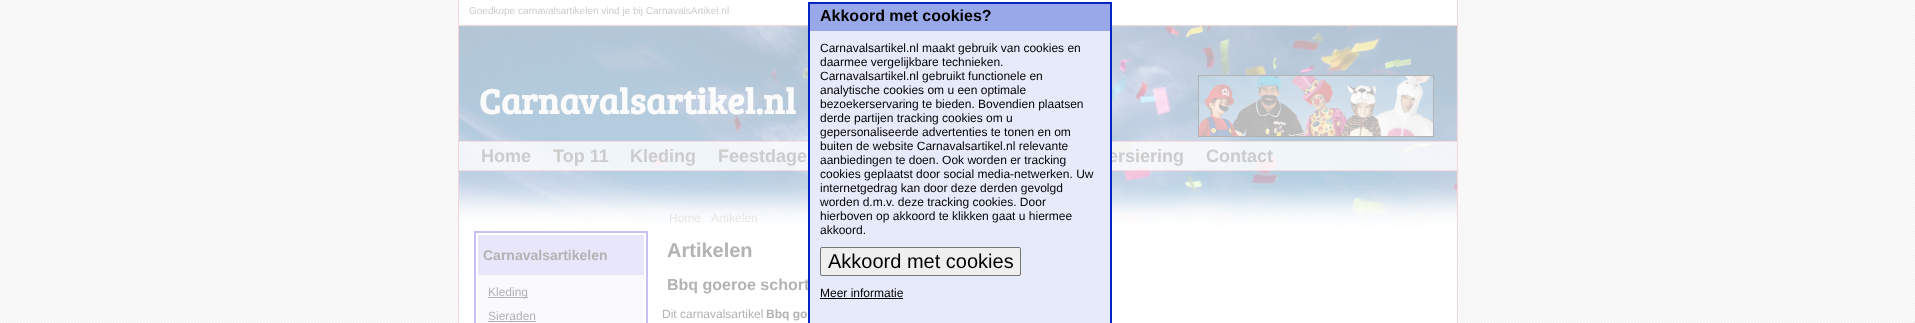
<svg xmlns="http://www.w3.org/2000/svg" width="1915" height="323">
<rect width="100%" height="100%" fill="#fff"/>
<image x="0" y="0" width="1915" height="323" href="media/1.png"/>
<rect x="459" width="998" height="323" fill="#fff"/>
<rect x="1457" width="1" height="323" fill="#f5d6d6"/>
<rect x="458" width="1" height="323" fill="#f5d6d6"/>
<text x="469" y="14" style="font-family:Liberation Sans;font-size:10px;fill:#ccc">Goedkope carnavalsartikelen vind je bij CarnavalsArtikel.nl</text>
<image x="459" y="26" width="998" height="200" href="media/2.png"/>
<rect x="459" y="25" width="998" height="1" fill="#f5d6d6"/>
<text x="479" y="114" style="font-family:Bree Serif;font-size:36px;font-weight:bold;fill:#fbfbfb">Carnavalsartikel.nl</text>
<rect x="1198.5" y="75.5" width="235" height="61" fill="none" stroke="#b3b3b3"/>
<image x="1199" y="76" width="234" height="60" href="media/3.png"/>
<rect x="459" y="141" width="998" height="30" fill="#ffffffcc"/>
<rect x="459" y="141" width="998" height="1" fill="#f5d6d6cc"/>
<rect x="459" y="170" width="998" height="1" fill="#f5d6d6cc"/>
<text x="481" y="162" style="font-family:Liberation Sans;font-size:18px;font-weight:bold;fill:#ccc">Home</text>
<text x="553" y="162" style="font-family:Liberation Sans;font-size:18px;font-weight:bold;fill:#ccc">Top 11</text>
<text x="630" y="162" style="font-family:Liberation Sans;font-size:18px;font-weight:bold;fill:#ccc">Kleding</text>
<text x="718" y="162" style="font-family:Liberation Sans;font-size:18px;font-weight:bold;fill:#ccc">Feestdage</text>
<text x="1108" y="162" style="font-family:Liberation Sans;font-size:18px;font-weight:bold;fill:#ccc">ersiering</text>
<text x="1206" y="162" style="font-family:Liberation Sans;font-size:18px;font-weight:bold;fill:#ccc">Contact</text>
<text x="669" y="222" style="font-family:Liberation Sans;font-size:12px;fill:#e6e6e6">Home</text>
<text x="711" y="222" style="font-family:Liberation Sans;font-size:12px;fill:#e6e6e6">Artikelen</text>
<rect x="475" y="232" width="172" height="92" fill="none" stroke="#c6c0f3" stroke-width="2"/>
<rect x="478" y="235" width="166" height="40" fill="#e8e6fa"/>
<text x="483" y="260" style="font-family:Liberation Sans;font-size:14px;font-weight:bold;fill:#b3b3b3">Carnavalsartikelen</text>
<rect x="478" y="275" width="166" height="48" fill="#f9f9fe"/>
<rect x="488" y="297" width="40" height="1" fill="#b3b3b3"/>
<text x="488" y="296" style="font-family:Liberation Sans;font-size:12px;fill:#b3b3b3">Kleding</text>
<text x="488" y="320" style="font-family:Liberation Sans;font-size:12px;fill:#b3b3b3">Sieraden</text>
<rect x="488" y="321" width="48" height="1" fill="#b3b3b3"/>
<text x="667" y="257" style="font-family:Liberation Sans;font-size:20px;font-weight:bold;fill:#b3b3b3">Artikelen</text>
<text x="667" y="290" style="font-family:Liberation Sans;font-size:16px;font-weight:bold;fill:#b3b3b3">Bbq goeroe schort</text>
<text x="662" y="318" style="font-family:Liberation Sans;font-size:12px;fill:#b3b3b3">Dit carnavalsartikel</text>
<text x="766" y="318" style="font-family:Liberation Sans;font-size:12px;font-weight:bold;fill:#b3b3b3">Bbq go</text>
<rect x="810" y="31" width="300" height="292" fill="#e6eafa"/>
<rect x="809" y="3" width="302" height="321" fill="none" stroke="#0126c6" stroke-width="2"/>
<rect x="810" y="4" width="300" height="27" fill="#99a8e8"/>
<text x="820" y="21" style="font-family:Liberation Sans;font-size:16px;font-weight:bold;fill:#000">Akkoord met cookies?</text>
<text x="820" y="52" style="font-family:Liberation Sans;font-size:12px;fill:#000">Carnavalsartikel.nl maakt gebruik van cookies en</text>
<text x="820" y="66" style="font-family:Liberation Sans;font-size:12px;fill:#000">daarmee vergelijkbare technieken.</text>
<text x="820" y="80" style="font-family:Liberation Sans;font-size:12px;fill:#000">Carnavalsartikel.nl gebruikt functionele en</text>
<text x="820" y="94" style="font-family:Liberation Sans;font-size:12px;fill:#000">analytische cookies om u een optimale</text>
<text x="820" y="108" style="font-family:Liberation Sans;font-size:12px;fill:#000">bezoekerservaring te bieden. Bovendien plaatsen</text>
<text x="820" y="122" style="font-family:Liberation Sans;font-size:12px;fill:#000">derde partijen tracking cookies om u</text>
<text x="820" y="136" style="font-family:Liberation Sans;font-size:12px;fill:#000">gepersonaliseerde advertenties te tonen en om</text>
<text x="820" y="150" style="font-family:Liberation Sans;font-size:12px;fill:#000">buiten de website Carnavalsartikel.nl relevante</text>
<text x="820" y="164" style="font-family:Liberation Sans;font-size:12px;fill:#000">aanbiedingen te doen. Ook worden er tracking</text>
<text x="820" y="178" style="font-family:Liberation Sans;font-size:12px;fill:#000">cookies geplaatst door social media-netwerken. Uw</text>
<text x="820" y="192" style="font-family:Liberation Sans;font-size:12px;fill:#000">internetgedrag kan door deze derden gevolgd</text>
<text x="820" y="206" style="font-family:Liberation Sans;font-size:12px;fill:#000">worden d.m.v. deze tracking cookies. Door</text>
<text x="820" y="220" style="font-family:Liberation Sans;font-size:12px;fill:#000">hierboven op akkoord te klikken gaat u hiermee</text>
<text x="820" y="234" style="font-family:Liberation Sans;font-size:12px;fill:#000">akkoord.</text>
<rect x="820.5" y="247.5" width="200" height="28" rx="1.5" fill="#efefef" stroke="#767676"/>
<text x="828" y="268" style="font-family:Liberation Sans;font-size:20px;fill:#000">Akkoord met cookies</text>
<text x="820" y="297" style="font-family:Liberation Sans;font-size:12px;fill:#000">Meer informatie</text>
<rect x="820" y="298" width="83" height="1" fill="#000"/>
</svg>
